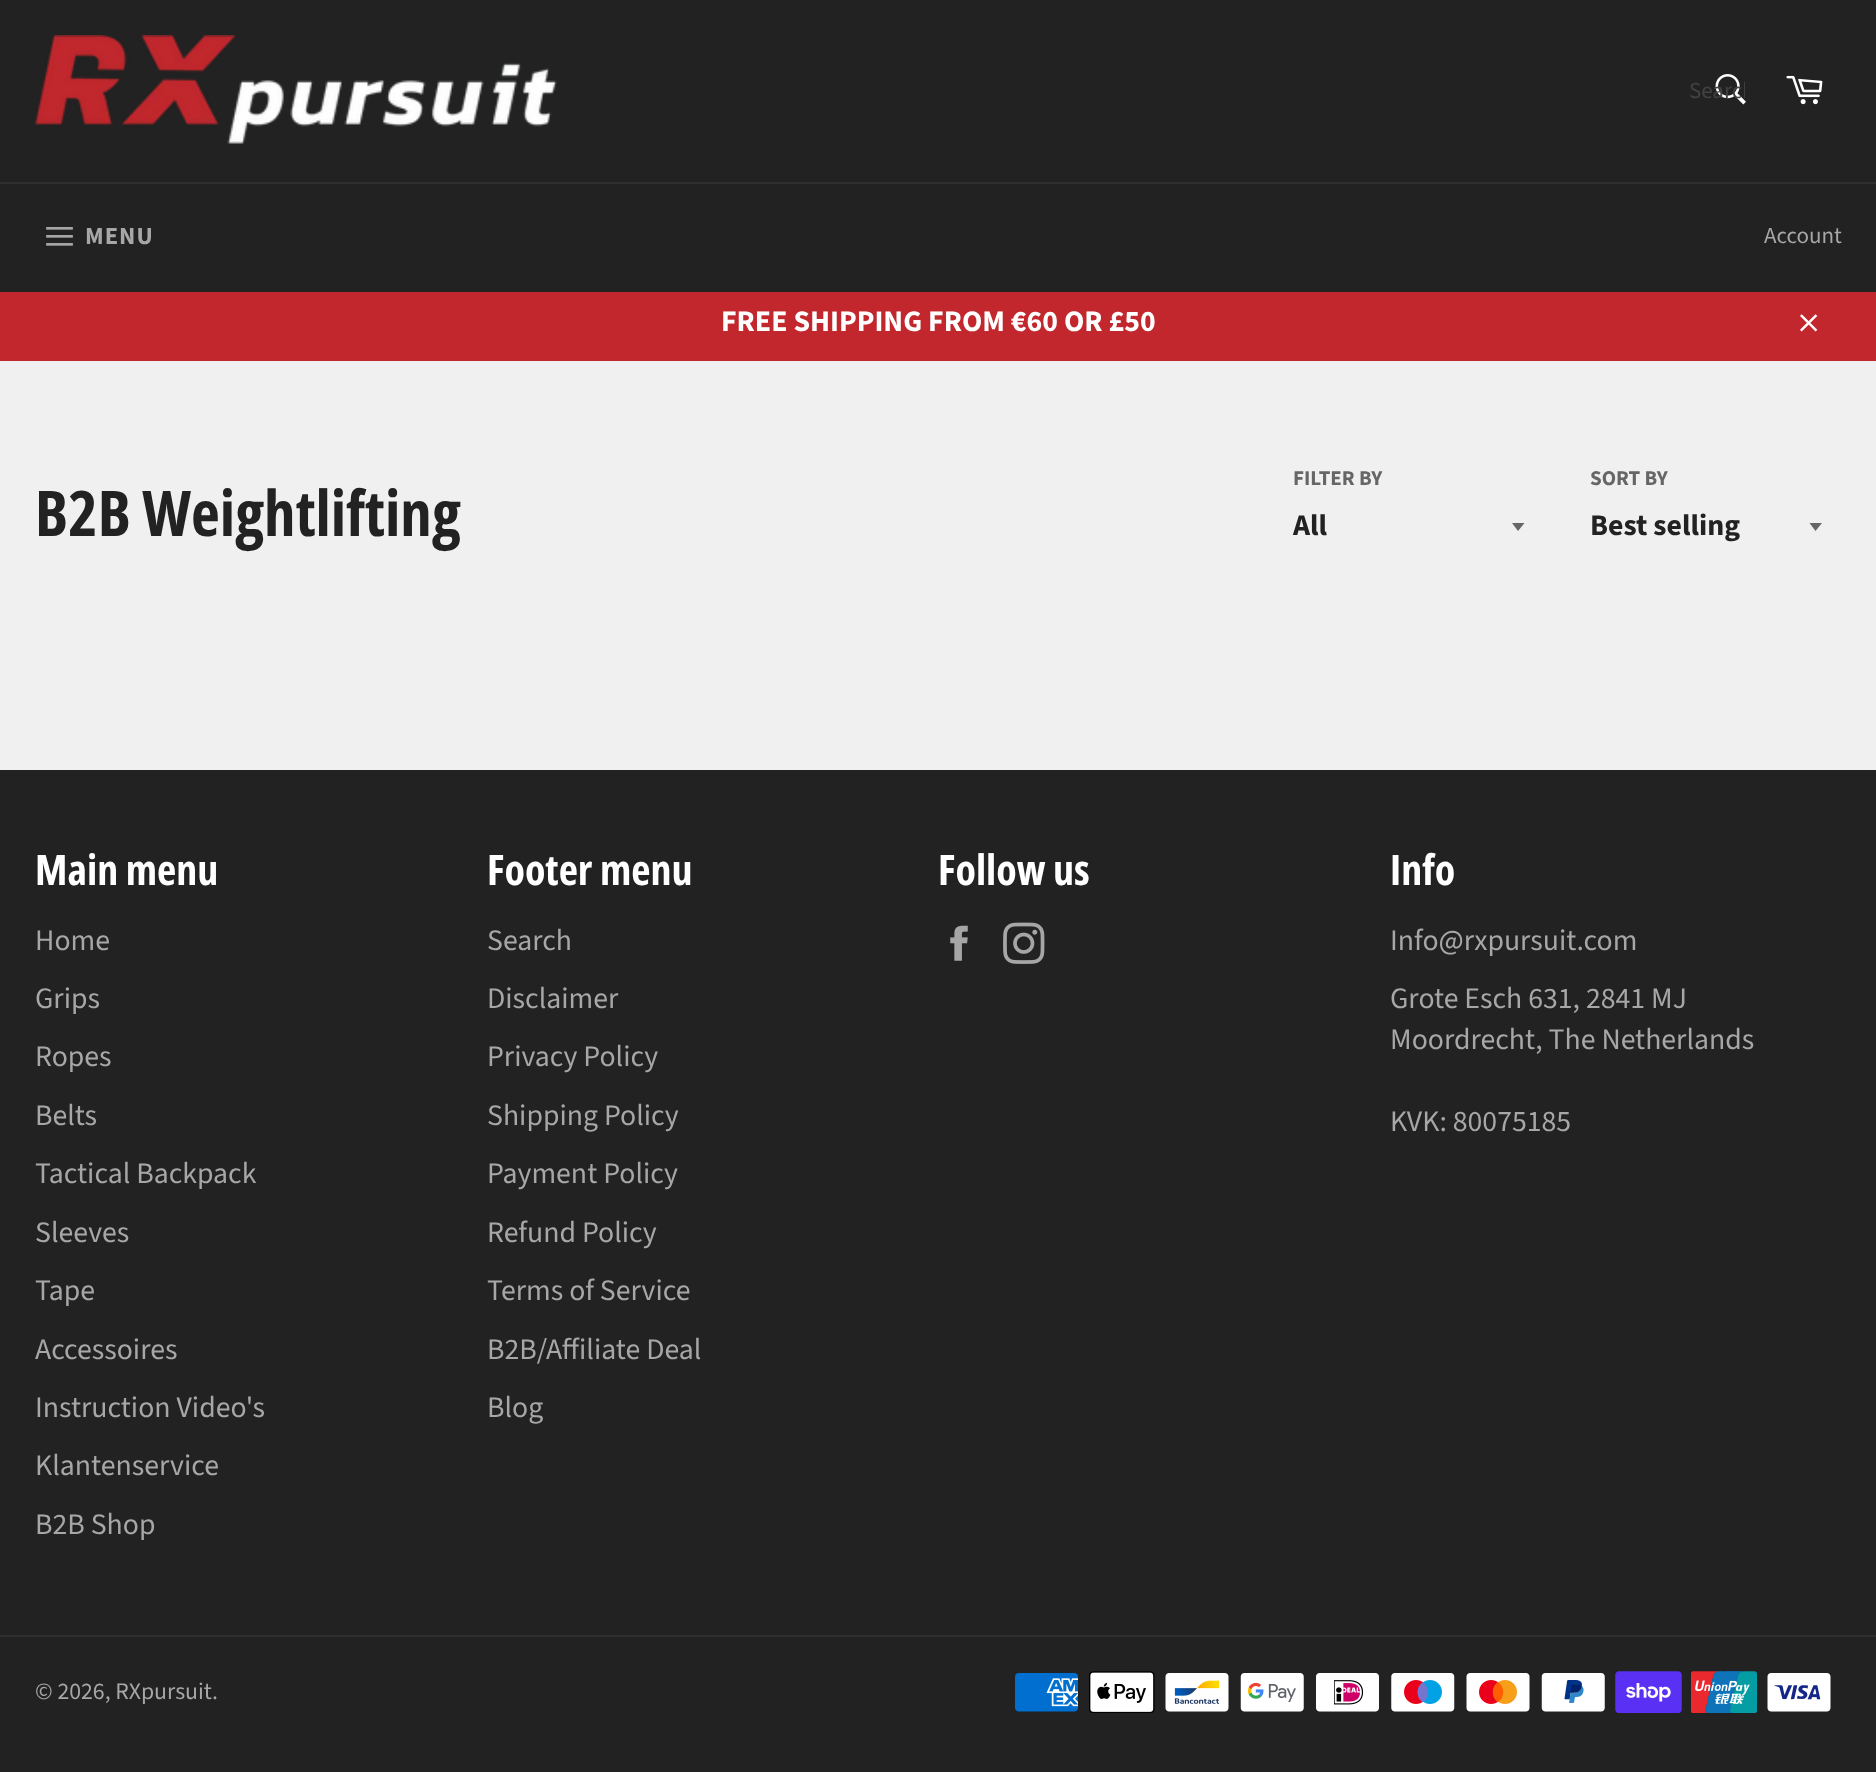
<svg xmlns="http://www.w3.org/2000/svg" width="1876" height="1772">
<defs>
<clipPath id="clip1"><rect x="1689" y="75" width="56" height="32"/></clipPath>
</defs>
<rect width="100%" height="100%" fill="#222"/>
<rect y="361" width="1876" height="409" fill="#f0f0f0"/>
<image x="35" y="35" width="522" height="109" href="media/1.png"/>
<image x="1715" y="74" width="31" height="31" href="media/2.png"/>
<g clip-path="url(#clip1)">
<text x="1689" y="98" style="font-family:Source Sans Pro;font-size:23px;fill:#424242">Search</text>
</g>
<image x="1786" y="75" width="37" height="30" href="media/3.png"/>
<rect y="182" width="1876" height="2" fill="#2f2f2f"/>
<image x="46" y="227" width="27" height="19" href="media/4.png"/>
<text x="85" y="244" style="font-family:Source Sans Pro;font-size:24.5px;font-weight:bold;letter-spacing:1px;fill:#a7a7a7">MENU</text>
<text x="1764" y="243" style="font-family:Source Sans Pro;font-size:23px;fill:#a7a7a7">Account</text>
<rect y="292" width="1876" height="69" fill="#c1272d"/>
<text x="721" y="331" style="font-family:Source Sans Pro;font-size:29.75px;font-weight:bold;fill:#fff">FREE SHIPPING FROM €60 OR £50</text>
<image x="1800" y="314" width="18" height="18" href="media/5.png"/>
<text x="35" y="536" style="font-family:Open Sans Condensed;font-size:63px;font-weight:bold;fill:#222">B2B Weightlifting</text>
<text x="1293" y="485" style="font-family:Source Sans Pro;font-size:21px;font-weight:bold;fill:#666">FILTER BY</text>
<path d="M1512 523l6 8l6.5-8z" fill="#666"/>
<text x="1293" y="535" style="font-family:Source Sans Pro;font-size:29.75px;font-weight:bold;fill:#222">All</text>
<text x="1590" y="485" style="font-family:Source Sans Pro;font-size:21px;font-weight:bold;fill:#666">SORT BY</text>
<path d="M1809.5 523l6 8l6.5-8z" fill="#666"/>
<text x="1590" y="535" style="font-family:Source Sans Pro;font-size:29.75px;font-weight:bold;fill:#222">Best selling</text>
<text x="35" y="885" style="font-family:Open Sans Condensed;font-size:42px;font-weight:bold;fill:#fff">Main menu</text>
<text x="35" y="950" style="font-family:Source Sans Pro;font-size:29.75px;fill:#a7a7a7">Home</text>
<text x="35" y="1008" style="font-family:Source Sans Pro;font-size:29.75px;fill:#a7a7a7">Grips</text>
<text x="35" y="1066" style="font-family:Source Sans Pro;font-size:29.75px;fill:#a7a7a7">Ropes</text>
<text x="35" y="1125" style="font-family:Source Sans Pro;font-size:29.75px;fill:#a7a7a7">Belts</text>
<text x="35" y="1183" style="font-family:Source Sans Pro;font-size:29.75px;fill:#a7a7a7">Tactical Backpack</text>
<text x="35" y="1242" style="font-family:Source Sans Pro;font-size:29.75px;fill:#a7a7a7">Sleeves</text>
<text x="35" y="1300" style="font-family:Source Sans Pro;font-size:29.75px;fill:#a7a7a7">Tape</text>
<text x="35" y="1359" style="font-family:Source Sans Pro;font-size:29.75px;fill:#a7a7a7">Accessoires</text>
<text x="35" y="1417" style="font-family:Source Sans Pro;font-size:29.75px;fill:#a7a7a7">Instruction Video's</text>
<text x="35" y="1475" style="font-family:Source Sans Pro;font-size:29.75px;fill:#a7a7a7">Klantenservice</text>
<text x="35" y="1534" style="font-family:Source Sans Pro;font-size:29.75px;fill:#a7a7a7">B2B Shop</text>
<text x="487" y="885" style="font-family:Open Sans Condensed;font-size:42px;font-weight:bold;fill:#fff">Footer menu</text>
<text x="487" y="950" style="font-family:Source Sans Pro;font-size:29.75px;fill:#a7a7a7">Search</text>
<text x="487" y="1008" style="font-family:Source Sans Pro;font-size:29.75px;fill:#a7a7a7">Disclaimer</text>
<text x="487" y="1066" style="font-family:Source Sans Pro;font-size:29.75px;fill:#a7a7a7">Privacy Policy</text>
<text x="487" y="1125" style="font-family:Source Sans Pro;font-size:29.75px;fill:#a7a7a7">Shipping Policy</text>
<text x="487" y="1183" style="font-family:Source Sans Pro;font-size:29.75px;fill:#a7a7a7">Payment Policy</text>
<text x="487" y="1242" style="font-family:Source Sans Pro;font-size:29.75px;fill:#a7a7a7">Refund Policy</text>
<text x="487" y="1300" style="font-family:Source Sans Pro;font-size:29.75px;fill:#a7a7a7">Terms of Service</text>
<text x="487" y="1359" style="font-family:Source Sans Pro;font-size:29.75px;fill:#a7a7a7">B2B/Affiliate Deal</text>
<text x="487" y="1417" style="font-family:Source Sans Pro;font-size:29.75px;fill:#a7a7a7">Blog</text>
<text x="938" y="885" style="font-family:Open Sans Condensed;font-size:42px;font-weight:bold;fill:#fff">Follow us</text>
<image x="950" y="925" width="18" height="36" href="media/6.png"/>
<image x="1003" y="922" width="42" height="42" href="media/7.png"/>
<text x="1390" y="885" style="font-family:Open Sans Condensed;font-size:42px;font-weight:bold;fill:#fff">Info</text>
<text x="1390" y="950" style="font-family:Source Sans Pro;font-size:29.75px;fill:#a7a7a7">Info@rxpursuit.com</text>
<text x="1390" y="1008" style="font-family:Source Sans Pro;font-size:29.75px;fill:#a7a7a7">Grote Esch 631, 2841 MJ</text>
<text x="1390" y="1049" style="font-family:Source Sans Pro;font-size:29.75px;fill:#a7a7a7">Moordrecht, The Netherlands</text>
<text x="1390" y="1131" style="font-family:Source Sans Pro;font-size:29.75px;fill:#a7a7a7">KVK: 80075185</text>
<rect y="1635" width="1876" height="2" fill="#2f2f2f"/>
<text x="35" y="1699" style="font-family:Source Sans Pro;font-size:23.75px;fill:#a7a7a7">© 2026, RXpursuit.</text>
<image x="1015" y="1673" width="63" height="39" href="media/8.png"/>
<image x="1089" y="1671" width="66" height="42" href="media/9.png"/>
<image x="1165" y="1673" width="64" height="39" href="media/10.png"/>
<image x="1240" y="1673" width="64" height="39" href="media/11.png"/>
<image x="1316" y="1673" width="63" height="39" href="media/12.png"/>
<image x="1391" y="1673" width="64" height="39" href="media/13.png"/>
<image x="1466" y="1673" width="64" height="39" href="media/14.png"/>
<image x="1541" y="1673" width="64" height="39" href="media/15.png"/>
<image x="1615" y="1671" width="67" height="42" href="media/16.png"/>
<image x="1691" y="1671" width="66" height="42" href="media/17.png"/>
<image x="1767" y="1673" width="64" height="39" href="media/18.png"/>
</svg>
